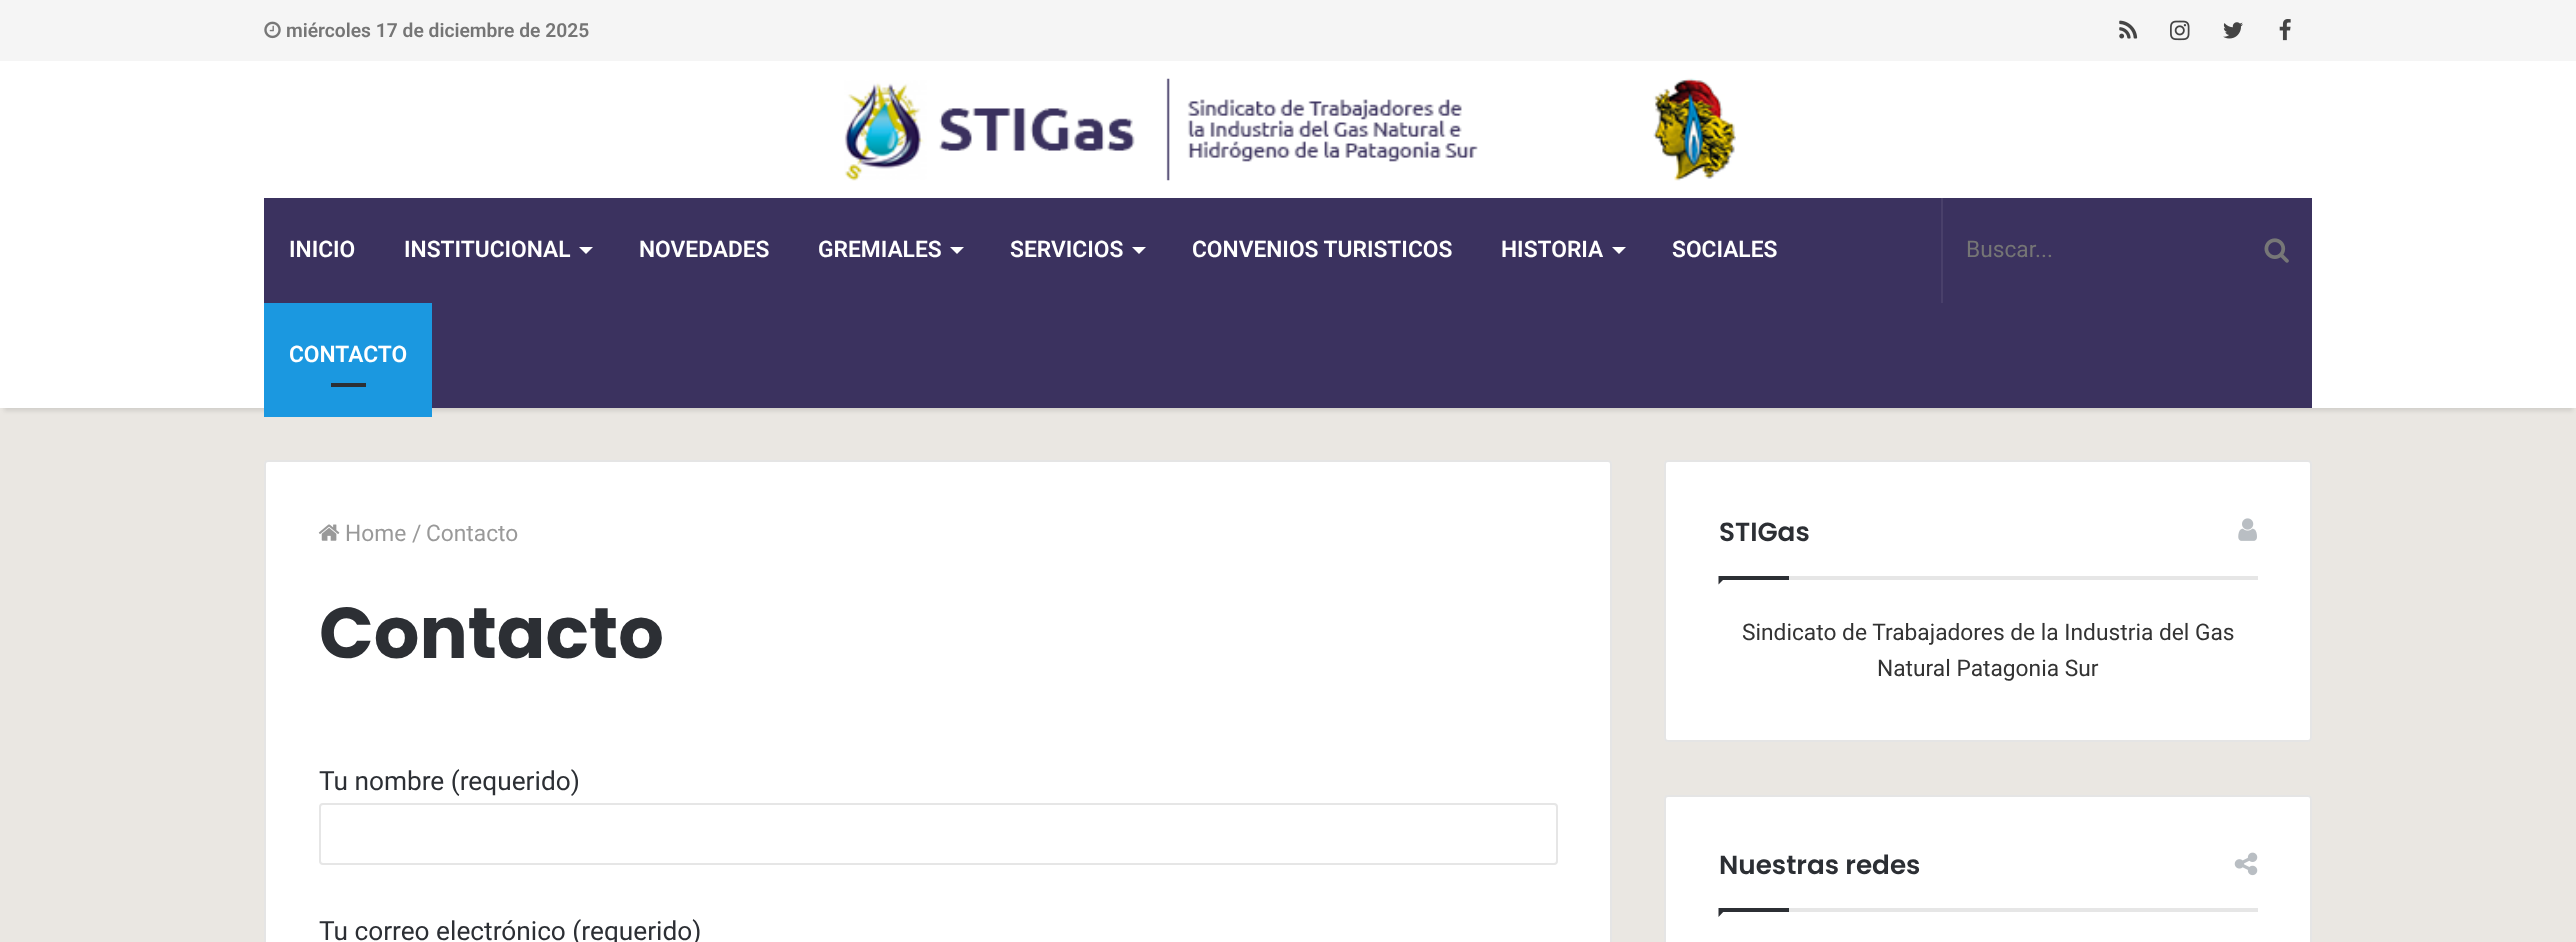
<svg xmlns="http://www.w3.org/2000/svg" width="2576" height="942">
<rect width="100%" height="100%" fill="#eae7e2"/>
<rect x="4" y="11" width="2569" height="400" fill="#0000001a" filter="blur(2px)"/>
<rect y="61" width="2576" height="347" fill="#fff"/>
<rect width="2576" height="61" fill="#f5f5f5"/>
<image x="264" y="21" width="17" height="18" href="media/1.png"/>
<text x="286" y="37" style="font-family:Roboto;font-size:19.25px;font-weight:600;fill:#757575">miércoles 17 de diciembre de 2025</text>
<image x="2119" y="20" width="19" height="19" href="media/2.png"/>
<image x="2170" y="20" width="20" height="21" href="media/3.png"/>
<image x="2223" y="22" width="20" height="17" href="media/4.png"/>
<image x="2279" y="19" width="12" height="22" href="media/5.png"/>
<image x="844" y="78" width="892" height="103" href="media/6.png"/>
<rect x="264" y="198" width="2048" height="210" fill="#3b325f"/>
<text x="289" y="257" style="font-family:Roboto;font-size:22.75px;font-weight:600;fill:#fff">INICIO</text>
<text x="404" y="257" style="font-family:Roboto;font-size:22.75px;font-weight:600;fill:#fff">INSTITUCIONAL</text>
<path d="M579 247h14l-7 7z" fill="#fff"/>
<text x="639" y="257" style="font-family:Roboto;font-size:22.75px;font-weight:600;fill:#fff">NOVEDADES</text>
<text x="818" y="257" style="font-family:Roboto;font-size:22.75px;font-weight:600;fill:#fff">GREMIALES</text>
<path d="M950 247h14l-7 7z" fill="#fff"/>
<text x="1010" y="257" style="font-family:Roboto;font-size:22.75px;font-weight:600;fill:#fff">SERVICIOS</text>
<path d="M1132 247h14l-7 7z" fill="#fff"/>
<text x="1192" y="257" style="font-family:Roboto;font-size:22.75px;font-weight:600;fill:#fff">CONVENIOS TURISTICOS</text>
<text x="1501" y="257" style="font-family:Roboto;font-size:22.75px;font-weight:600;fill:#fff">HISTORIA</text>
<path d="M1612 247h14l-7 7z" fill="#fff"/>
<text x="1672" y="257" style="font-family:Roboto;font-size:22.75px;font-weight:600;fill:#fff">SOCIALES</text>
<rect x="264" y="303" width="168" height="114" fill="#1b98e0"/>
<text x="289" y="362" style="font-family:Roboto;font-size:22.75px;font-weight:600;fill:#fff">CONTACTO</text>
<rect x="331" y="383" width="35" height="4" fill="#2c2f34"/>
<rect x="1941" y="198" width="2" height="105" fill="#49406a"/>
<text x="1966" y="257" style="font-family:Roboto;font-size:22.75px;fill:#757575">Buscar...</text>
<image x="2264" y="238" width="25" height="25" href="media/7.png"/>
<rect x="264" y="460" width="1348" height="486" rx="4" fill="#fff"/>
<rect x="265" y="461" width="1346" height="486" rx="3" fill="none" stroke="#0000001a" stroke-width="2"/>
<image x="318" y="524" width="22" height="17" href="media/8.png"/>
<text x="345" y="541" style="font-family:Roboto;font-size:22.75px;fill:#999">Home</text>
<text x="412" y="541" style="font-family:Roboto;font-size:22.75px;fill:#999">/</text>
<text x="426" y="541" style="font-family:Roboto;font-size:22.75px;fill:#999">Contacto</text>
<text x="319" y="658" style="font-family:Poppins;font-size:71.75px;font-weight:bold;fill:#2c2f34">Contacto</text>
<text x="319" y="790" style="font-family:Roboto;font-size:26.25px;fill:#2c2f34">Tu nombre (requerido)</text>
<rect x="320" y="804" width="1237" height="60" rx="3" fill="none" stroke="#e6e6e6" stroke-width="2"/>
<text x="319" y="940" style="font-family:Roboto;font-size:26.25px;fill:#2c2f34">Tu correo electrónico (requerido)</text>
<rect x="1664" y="460" width="648" height="282" rx="4" fill="#fff"/>
<rect x="1665" y="461" width="646" height="280" rx="3" fill="none" stroke="#0000001a" stroke-width="2"/>
<rect x="1789" y="576" width="469" height="4" fill="#e6e6e6"/>
<text x="1719" y="541" style="font-family:Poppins;font-size:26.25px;font-weight:600;fill:#2c2f34">STIGas</text>
<image x="2238" y="518" width="19" height="23" href="media/9.png"/>
<path d="M1718.5 576h8.5l-8.5 8.5z" fill="#2c2f34"/>
<rect x="1719" y="576" width="70" height="4" fill="#2c2f34"/>
<text x="1742" y="640" style="font-family:Roboto;font-size:22.75px;fill:#333">Sindicato de Trabajadores de la Industria del Gas</text>
<text x="1877" y="676" style="font-family:Roboto;font-size:22.75px;fill:#333">Natural Patagonia Sur</text>
<rect x="1664" y="795" width="648" height="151" rx="4" fill="#fff"/>
<rect x="1665" y="796" width="646" height="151" rx="3" fill="none" stroke="#0000001a" stroke-width="2"/>
<rect x="1789" y="908" width="469" height="4" fill="#e6e6e6"/>
<text x="1719" y="874" style="font-family:Poppins;font-size:26.25px;font-weight:600;fill:#2c2f34">Nuestras redes</text>
<image x="2234" y="852" width="24" height="24" href="media/10.png"/>
<path d="M1718.5 908h8.5l-8.5 9z" fill="#2c2f34"/>
<rect x="1719" y="908" width="70" height="4" fill="#2c2f34"/>
</svg>
